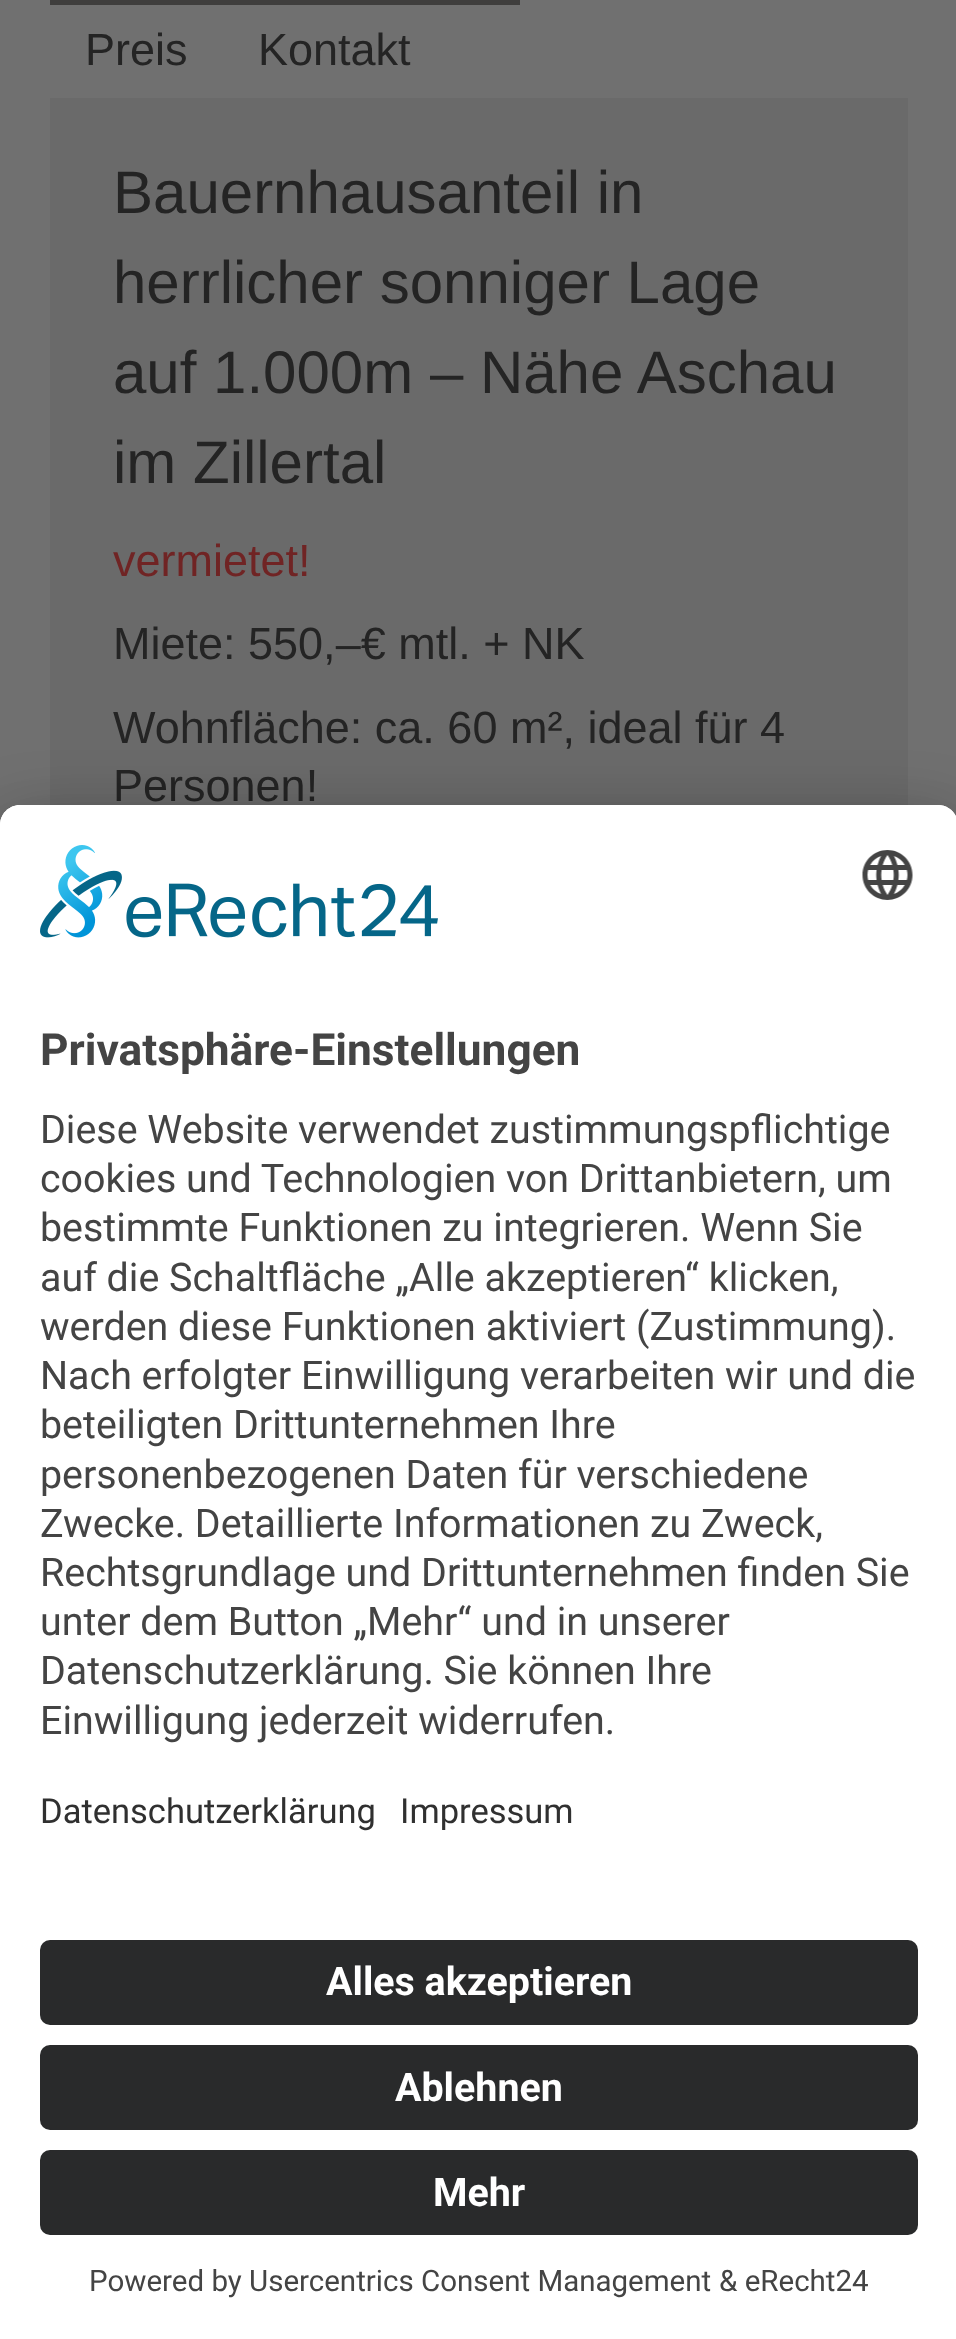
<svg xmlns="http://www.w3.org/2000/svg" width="956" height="2339">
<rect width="100%" height="100%" fill="#707070"/>
<rect x="50" width="470" height="5" fill="#3f3e3d"/>
<text x="85" y="65" style="font-family:Liberation Sans;font-size:45px;fill:#242424">Preis</text>
<text x="258" y="65" style="font-family:Liberation Sans;font-size:45px;fill:#242424">Kontakt</text>
<rect x="50" y="98" width="858" height="707" fill="#6a6a6a"/>
<text x="113" y="213" style="font-family:Liberation Sans;font-size:60px;fill:#242424">Bauernhausanteil in</text>
<text x="113" y="303" style="font-family:Liberation Sans;font-size:60px;fill:#242424">herrlicher sonniger Lage</text>
<text x="113" y="393" style="font-family:Liberation Sans;font-size:60px;fill:#242424">auf 1.000m – Nähe Aschau</text>
<text x="113" y="483" style="font-family:Liberation Sans;font-size:60px;fill:#242424">im Zillertal</text>
<text x="113" y="576" style="font-family:Liberation Sans;font-size:45px;fill:#702424">vermietet!</text>
<text x="113" y="659" style="font-family:Liberation Sans;font-size:45px;fill:#242424">Miete: 550,–€ mtl. + NK</text>
<text x="113" y="743" style="font-family:Liberation Sans;font-size:45px;fill:#242424">Wohnfläche: ca. 60 m², ideal für 4</text>
<text x="113" y="801" style="font-family:Liberation Sans;font-size:45px;fill:#242424">Personen!</text>
<rect y="855" width="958" height="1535" rx="20" fill="#0000004d" filter="blur(35px)"/>
<rect y="818" width="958" height="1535" rx="20" fill="#00000038" filter="blur(32.5px)"/>
<path d="M20 805h918c11 0 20 9 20 20v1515h-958v-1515c0-11 9-20 20-20z" fill="#fff"/>
<path d="M20 805h918c11 0 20 9 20 20v1085h-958v-1085c0-11 9-20 20-20z" fill="#fff"/>
<image x="40" y="845" width="398" height="93" href="media/1.png"/>
<image x="862" y="850" width="51" height="50" href="media/2.png"/>
<text x="40" y="1065" style="font-family:Roboto;font-size:44.25px;font-weight:bold;fill:#444">Privatsphäre-Einstellungen</text>
<text x="40" y="1143" style="font-family:Roboto;font-size:39.4px;fill:#444">Diese Website verwendet zustimmungspflichtige</text>
<text x="40" y="1192" style="font-family:Roboto;font-size:39.4px;fill:#444">cookies und Technologien von Drittanbietern, um</text>
<text x="40" y="1241" style="font-family:Roboto;font-size:39.4px;fill:#444">bestimmte Funktionen zu integrieren. Wenn Sie</text>
<text x="40" y="1291" style="font-family:Roboto;font-size:39.4px;fill:#444">auf die Schaltfläche „Alle akzeptieren“ klicken,</text>
<text x="40" y="1340" style="font-family:Roboto;font-size:39.4px;fill:#444">werden diese Funktionen aktiviert (Zustimmung).</text>
<text x="40" y="1389" style="font-family:Roboto;font-size:39.4px;fill:#444">Nach erfolgter Einwilligung verarbeiten wir und die</text>
<text x="40" y="1438" style="font-family:Roboto;font-size:39.4px;fill:#444">beteiligten Drittunternehmen Ihre</text>
<text x="40" y="1488" style="font-family:Roboto;font-size:39.4px;fill:#444">personenbezogenen Daten für verschiedene</text>
<text x="40" y="1537" style="font-family:Roboto;font-size:39.4px;fill:#444">Zwecke. Detaillierte Informationen zu Zweck,</text>
<text x="40" y="1586" style="font-family:Roboto;font-size:39.4px;fill:#444">Rechtsgrundlage und Drittunternehmen finden Sie</text>
<text x="40" y="1635" style="font-family:Roboto;font-size:39.4px;fill:#444">unter dem Button „Mehr“ und in unserer</text>
<text x="40" y="1684" style="font-family:Roboto;font-size:39.4px;fill:#444">Datenschutzerklärung. Sie können Ihre</text>
<text x="40" y="1734" style="font-family:Roboto;font-size:39.4px;fill:#444">Einwilligung jederzeit widerrufen.</text>
<text x="40" y="1823" style="font-family:Roboto;font-size:34.5px;fill:#303030">Datenschutzerklärung</text>
<text x="400" y="1823" style="font-family:Roboto;font-size:34.5px;fill:#303030">Impressum</text>
<rect x="40" y="1940" width="878" height="85" rx="10" fill="#292a2b"/>
<text x="326" y="1995" style="font-family:Roboto;font-size:39.4px;font-weight:bold;fill:#fff">Alles akzeptieren</text>
<rect x="40" y="2045" width="878" height="85" rx="10" fill="#292a2b"/>
<text x="395" y="2101" style="font-family:Roboto;font-size:39.4px;font-weight:bold;fill:#fff">Ablehnen</text>
<rect x="40" y="2150" width="878" height="85" rx="10" fill="#292a2b"/>
<text x="433" y="2206" style="font-family:Roboto;font-size:39.4px;font-weight:bold;fill:#fff">Mehr</text>
<text x="89" y="2291" style="font-family:Roboto;font-size:29.5px;fill:#444">Powered by Usercentrics Consent Management</text>
<text x="719" y="2291" style="font-family:Roboto;font-size:29.5px;fill:#444">&amp; eRecht24</text>
</svg>
